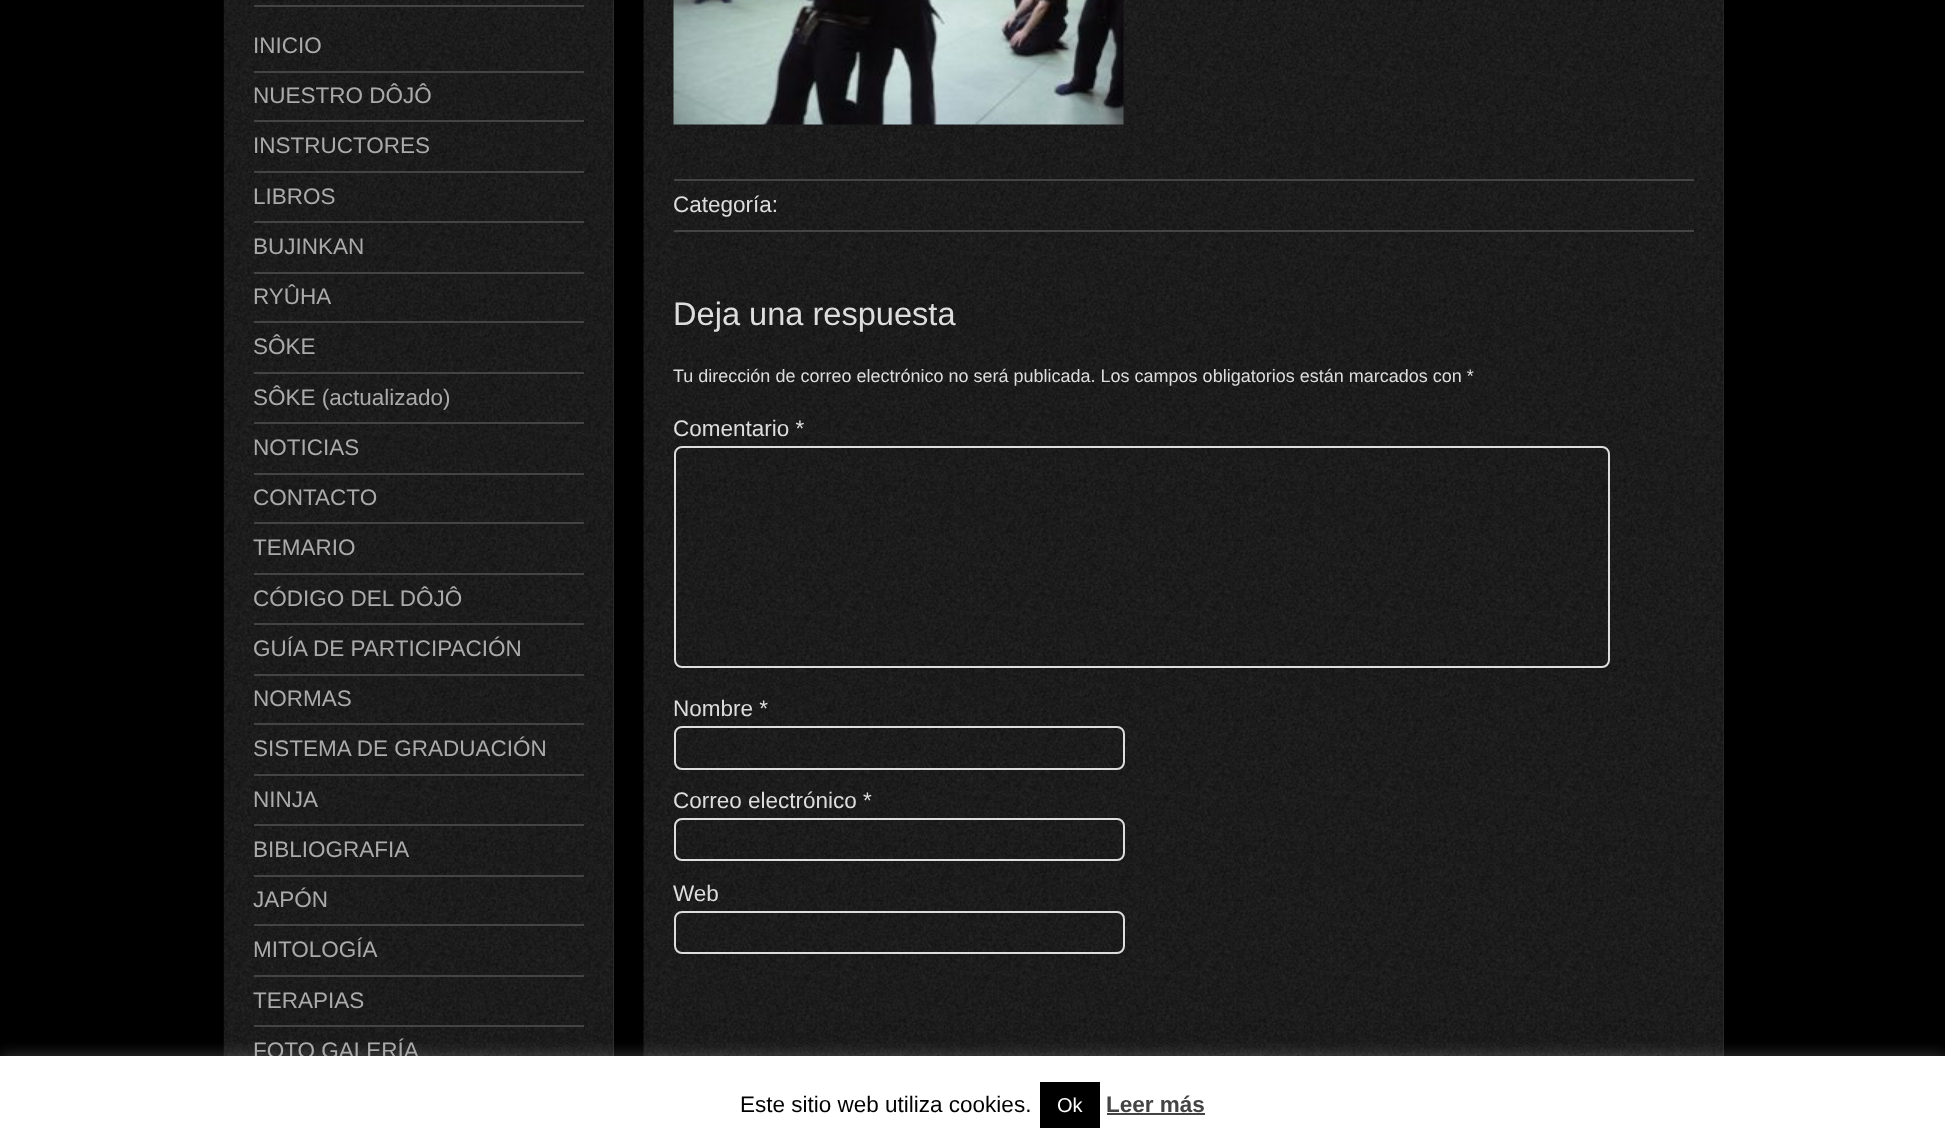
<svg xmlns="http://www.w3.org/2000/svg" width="1945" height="1145">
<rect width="100%" height="100%" fill="#000"/>
<rect x="613" width="1" height="1056" fill="#333"/>
<image x="223" y="0" width="391" height="1056" href="media/1.png"/>
<rect x="254" y="5" width="330" height="2" fill="#444"/>
<rect x="254" y="71" width="330" height="2" fill="#444"/>
<text x="253" y="53" style="font-family:Liberation Sans;font-size:22.5px;fill:#aaa">INICIO</text>
<rect x="254" y="120" width="330" height="2" fill="#444"/>
<text x="253" y="103" style="font-family:Liberation Sans;font-size:22.5px;fill:#aaa">NUESTRO DÔJÔ</text>
<rect x="254" y="171" width="330" height="2" fill="#444"/>
<text x="253" y="153" style="font-family:Liberation Sans;font-size:22.5px;fill:#aaa">INSTRUCTORES</text>
<rect x="254" y="221" width="330" height="2" fill="#444"/>
<text x="253" y="204" style="font-family:Liberation Sans;font-size:22.5px;fill:#aaa">LIBROS</text>
<rect x="254" y="272" width="330" height="2" fill="#444"/>
<text x="253" y="254" style="font-family:Liberation Sans;font-size:22.5px;fill:#aaa">BUJINKAN</text>
<rect x="254" y="321" width="330" height="2" fill="#444"/>
<text x="253" y="304" style="font-family:Liberation Sans;font-size:22.5px;fill:#aaa">RYÛHA</text>
<rect x="254" y="372" width="330" height="2" fill="#444"/>
<text x="253" y="354" style="font-family:Liberation Sans;font-size:22.5px;fill:#aaa">SÔKE</text>
<rect x="254" y="422" width="330" height="2" fill="#444"/>
<text x="253" y="405" style="font-family:Liberation Sans;font-size:22.5px;fill:#aaa">SÔKE (actualizado)</text>
<rect x="254" y="473" width="330" height="2" fill="#444"/>
<text x="253" y="455" style="font-family:Liberation Sans;font-size:22.5px;fill:#aaa">NOTICIAS</text>
<rect x="254" y="522" width="330" height="2" fill="#444"/>
<text x="253" y="505" style="font-family:Liberation Sans;font-size:22.5px;fill:#aaa">CONTACTO</text>
<rect x="254" y="573" width="330" height="2" fill="#444"/>
<text x="253" y="555" style="font-family:Liberation Sans;font-size:22.5px;fill:#aaa">TEMARIO</text>
<rect x="254" y="623" width="330" height="2" fill="#444"/>
<text x="253" y="606" style="font-family:Liberation Sans;font-size:22.5px;fill:#aaa">CÓDIGO DEL DÔJÔ</text>
<rect x="254" y="674" width="330" height="2" fill="#444"/>
<text x="253" y="656" style="font-family:Liberation Sans;font-size:22.5px;fill:#aaa">GUÍA DE PARTICIPACIÓN</text>
<rect x="254" y="723" width="330" height="2" fill="#444"/>
<text x="253" y="706" style="font-family:Liberation Sans;font-size:22.5px;fill:#aaa">NORMAS</text>
<rect x="254" y="774" width="330" height="2" fill="#444"/>
<text x="253" y="756" style="font-family:Liberation Sans;font-size:22.5px;fill:#aaa">SISTEMA DE GRADUACIÓN</text>
<rect x="254" y="824" width="330" height="2" fill="#444"/>
<text x="253" y="807" style="font-family:Liberation Sans;font-size:22.5px;fill:#aaa">NINJA</text>
<rect x="254" y="875" width="330" height="2" fill="#444"/>
<text x="253" y="857" style="font-family:Liberation Sans;font-size:22.5px;fill:#aaa">BIBLIOGRAFIA</text>
<rect x="254" y="924" width="330" height="2" fill="#444"/>
<text x="253" y="907" style="font-family:Liberation Sans;font-size:22.5px;fill:#aaa">JAPÓN</text>
<rect x="254" y="975" width="330" height="2" fill="#444"/>
<text x="253" y="957" style="font-family:Liberation Sans;font-size:22.5px;fill:#aaa">MITOLOGÍA</text>
<rect x="254" y="1025" width="330" height="2" fill="#444"/>
<text x="253" y="1008" style="font-family:Liberation Sans;font-size:22.5px;fill:#aaa">TERAPIAS</text>
<text x="253" y="1058" style="font-family:Liberation Sans;font-size:22.5px;fill:#aaa">FOTO GALERÍA</text>
<rect x="1723" width="1" height="1056" fill="#333"/>
<image x="643" y="0" width="1081" height="1056" href="media/2.png"/>
<image x="673" y="0" width="451" height="125" href="media/3.png"/>
<rect x="674" y="179" width="1020" height="2" fill="#444"/>
<rect x="674" y="230" width="1020" height="2" fill="#444"/>
<text x="673" y="212" style="font-family:Liberation Sans;font-size:22.5px;fill:#ddd">Categoría:</text>
<text x="673" y="325" style="font-family:Liberation Sans;font-size:32.6px;fill:#ddd">Deja una respuesta</text>
<text x="673" y="382" style="font-family:Liberation Sans;font-size:18px;fill:#ddd">Tu dirección de correo electrónico no será publicada. Los campos obligatorios están marcados con *</text>
<text x="673" y="436" style="font-family:Liberation Sans;font-size:22.5px;fill:#ddd">Comentario *</text>
<rect x="675" y="447" width="934" height="220" rx="7" fill="none" stroke="#ddd" stroke-width="2"/>
<text x="673" y="716" style="font-family:Liberation Sans;font-size:22.5px;fill:#ddd">Nombre *</text>
<rect x="675" y="727" width="449" height="42" rx="7" fill="none" stroke="#ddd" stroke-width="2"/>
<text x="673" y="808" style="font-family:Liberation Sans;font-size:22.5px;fill:#ddd">Correo electrónico *</text>
<rect x="675" y="819" width="449" height="41" rx="7" fill="none" stroke="#ddd" stroke-width="2"/>
<text x="673" y="901" style="font-family:Liberation Sans;font-size:22.5px;fill:#ddd">Web</text>
<rect x="675" y="912" width="449" height="41" rx="7" fill="none" stroke="#ddd" stroke-width="2"/>
<rect y="1055" width="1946" height="90" fill="#acabab4d" filter="blur(7.5px)"/>
<rect y="1056" width="1945" height="89" fill="#fff"/>
<text x="740" y="1112" style="font-family:Liberation Sans;font-size:22.5px;fill:#000">Este sitio web utiliza cookies.</text>
<rect x="1040" y="1082" width="60" height="46" fill="#000"/>
<text x="1057" y="1112" style="font-family:Liberation Sans;font-size:20px;fill:#fff">Ok</text>
<text x="1106" y="1112" style="font-family:Liberation Sans;font-size:22.5px;font-weight:bold;fill:#444">Leer más</text>
<rect x="1107" y="1113" width="98" height="2" fill="#444"/>
</svg>
